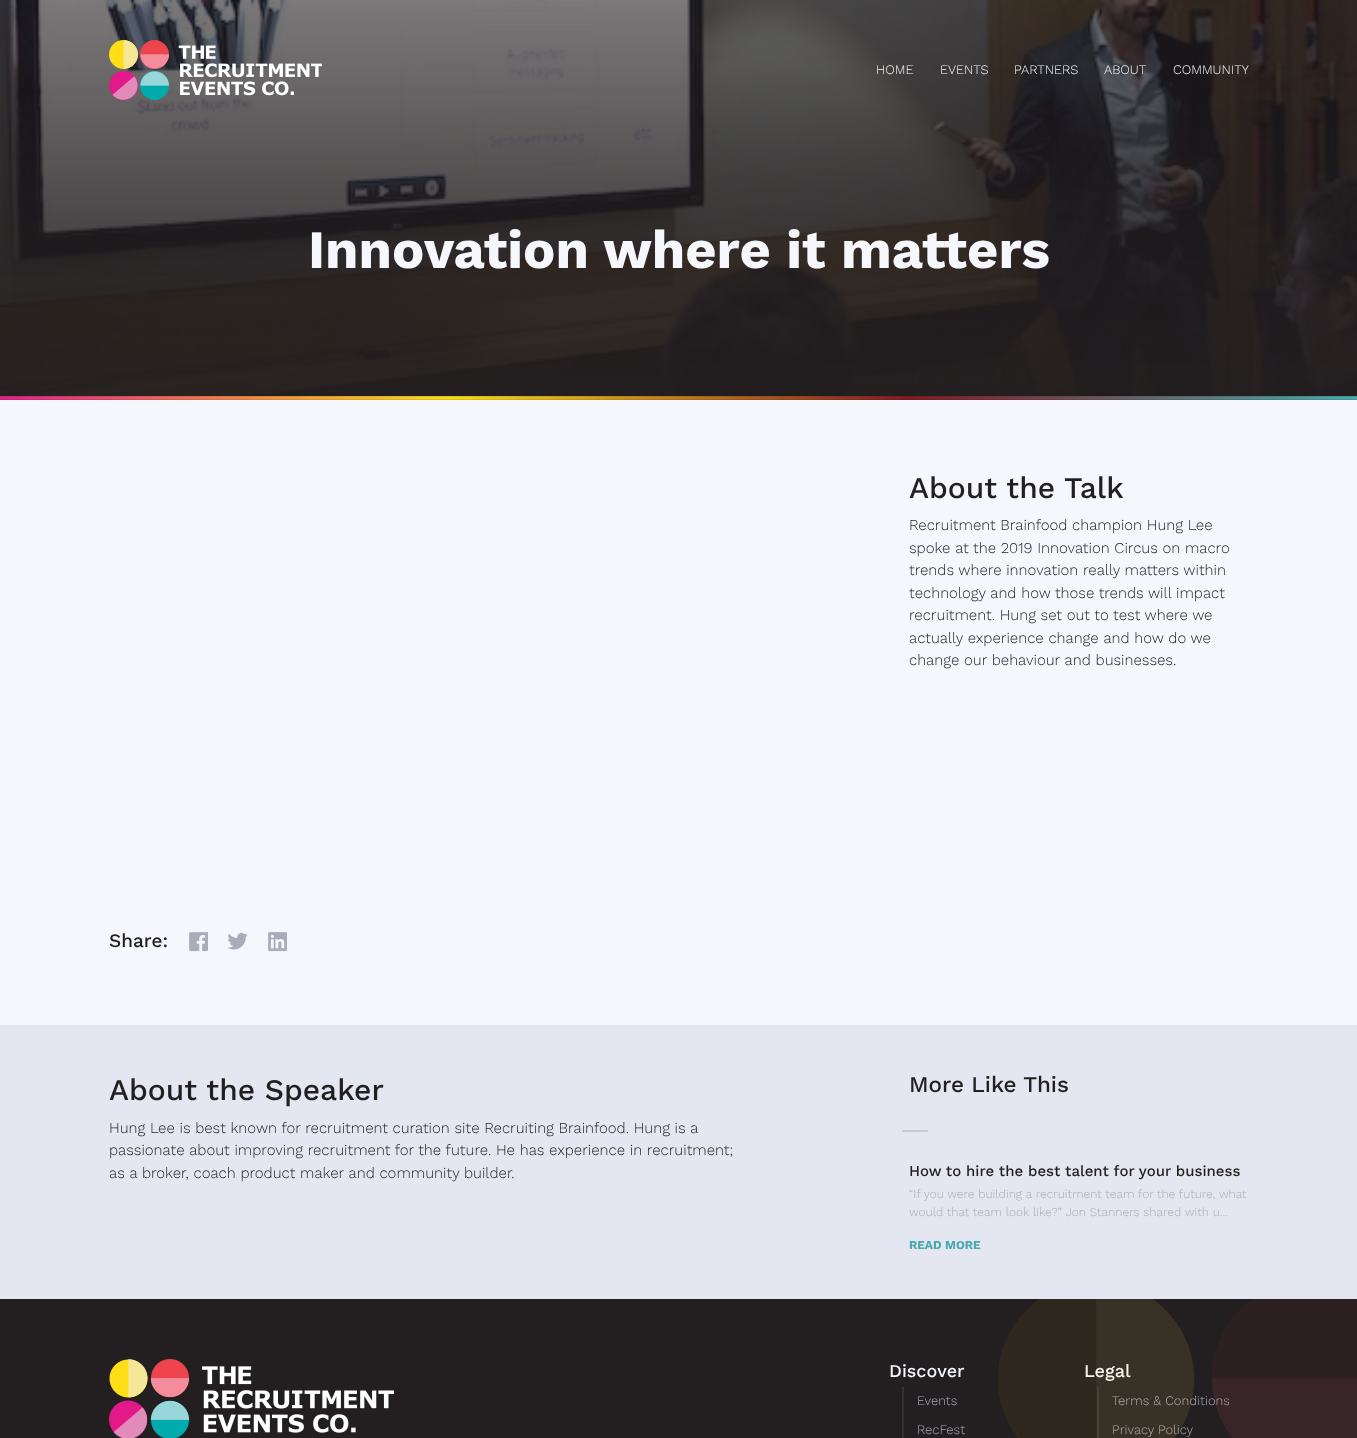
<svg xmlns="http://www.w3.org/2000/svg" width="1357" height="1438">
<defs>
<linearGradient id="g1" gradientUnits="userSpaceOnUse" x1="0" y1="398" x2="1357" y2="398"><stop offset="0" stop-color="#df2389"/><stop offset="0.33" stop-color="#f7dd17"/><stop offset="0.67" stop-color="#821b24"/><stop offset="1" stop-color="#48aaac"/></linearGradient>
</defs>
<rect width="100%" height="100%" fill="#231f20"/>
<image x="0" y="0" width="1357" height="396" href="media/2.png"/>
<image x="109" y="40" width="213" height="60" href="media/1.png"/>
<text x="876" y="74" style="font-family:Work Sans;font-size:13px;font-weight:300;fill:#f5f7fc">HOME</text>
<text x="940" y="74" style="font-family:Work Sans;font-size:13px;font-weight:300;fill:#f5f7fc">EVENTS</text>
<text x="1014" y="74" style="font-family:Work Sans;font-size:13px;font-weight:300;fill:#f5f7fc">PARTNERS</text>
<text x="1104" y="74" style="font-family:Work Sans;font-size:13px;font-weight:300;fill:#f5f7fc">ABOUT</text>
<text x="1173" y="74" style="font-family:Work Sans;font-size:13px;font-weight:300;fill:#f5f7fc">COMMUNITY</text>
<text x="308" y="268" style="font-family:Work Sans;font-size:54px;font-weight:bold;fill:#f5f7fc">Innovation where it matters</text>
<rect y="396" width="1357" height="4" fill="url(#g1)"/>
<rect y="396" width="1357" height="1" fill="#0000001a"/>
<rect y="399" width="1357" height="1" fill="#0000001a"/>
<rect y="400" width="1357" height="625" fill="#f5f7fc"/>
<text x="909" y="498" style="font-family:Work Sans;font-size:30px;font-weight:500;fill:#231f20">About the Talk</text>
<text x="909" y="530" style="font-family:Work Sans;font-size:15px;font-weight:300;fill:#231f20">Recruitment Brainfood champion Hung Lee</text>
<text x="909" y="553" style="font-family:Work Sans;font-size:15px;font-weight:300;fill:#231f20">spoke at the 2019 Innovation Circus on macro</text>
<text x="909" y="575" style="font-family:Work Sans;font-size:15px;font-weight:300;fill:#231f20">trends where innovation really matters within</text>
<text x="909" y="598" style="font-family:Work Sans;font-size:15px;font-weight:300;fill:#231f20">technology and how those trends will impact</text>
<text x="909" y="620" style="font-family:Work Sans;font-size:15px;font-weight:300;fill:#231f20">recruitment. Hung set out to test where we</text>
<text x="909" y="643" style="font-family:Work Sans;font-size:15px;font-weight:300;fill:#231f20">actually experience change and how do we</text>
<text x="909" y="665" style="font-family:Work Sans;font-size:15px;font-weight:300;fill:#231f20">change our behaviour and businesses.</text>
<text x="109" y="947" style="font-family:Work Sans;font-size:19px;font-weight:500;fill:#231f20">Share:</text>
<image x="189" y="932" width="19" height="20" href="media/3.png"/>
<image x="227" y="932" width="21" height="18" href="media/4.png"/>
<image x="268" y="932" width="19" height="20" href="media/5.png"/>
<rect y="1025" width="1357" height="274" fill="#e4e7f1"/>
<text x="109" y="1100" style="font-family:Work Sans;font-size:30px;font-weight:500;fill:#231f20">About the Speaker</text>
<text x="109" y="1133" style="font-family:Work Sans;font-size:15px;font-weight:300;fill:#231f20">Hung Lee is best known for recruitment curation site Recruiting Brainfood. Hung is a</text>
<text x="109" y="1155" style="font-family:Work Sans;font-size:15px;font-weight:300;fill:#231f20">passionate about improving recruitment for the future. He has experience in recruitment;</text>
<text x="109" y="1178" style="font-family:Work Sans;font-size:15px;font-weight:300;fill:#231f20">as a broker, coach product maker and community builder.</text>
<text x="909" y="1092" style="font-family:Work Sans;font-size:22.5px;font-weight:500;fill:#231f20">More Like This</text>
<rect x="902" y="1130" width="26" height="2" rx="1" fill="#c7cad5"/>
<text x="909" y="1176" style="font-family:Work Sans;font-size:15px;font-weight:500;fill:#231f20">How to hire the best talent for your business</text>
<text x="909" y="1198" style="font-family:Work Sans;font-size:12px;font-weight:300;fill:#a9acb9">“If you were building a recruitment team for the future, what</text>
<text x="909" y="1216" style="font-family:Work Sans;font-size:12px;font-weight:300;fill:#a9acb9">would that team look like?” Jon Stanners shared with u…</text>
<text x="909" y="1249" style="font-family:Work Sans;font-size:12px;font-weight:bold;fill:#48aaac">READ MORE</text>
<text x="1084" y="1377" style="font-family:Work Sans;font-size:18px;font-weight:500;fill:#f5f7fc">Legal</text>
<rect x="1097" y="1387" width="2" height="51" fill="#353132"/>
<text x="1112" y="1405" style="font-family:Work Sans;font-size:13px;font-weight:300;fill:#a9acb9">Terms &amp; Conditions</text>
<text x="1112" y="1434" style="font-family:Work Sans;font-size:13px;font-weight:300;fill:#a9acb9">Privacy Policy</text>
<image x="998" y="1299" width="359" height="139" href="media/6.png"/>
<image x="109" y="1359" width="285" height="79" href="media/7.png"/>
<text x="889" y="1377" style="font-family:Work Sans;font-size:18px;font-weight:500;fill:#f5f7fc">Discover</text>
<rect x="902" y="1387" width="2" height="51" fill="#353132"/>
<text x="917" y="1405" style="font-family:Work Sans;font-size:13px;font-weight:300;fill:#a9acb9">Events</text>
<text x="917" y="1434" style="font-family:Work Sans;font-size:13px;font-weight:300;fill:#a9acb9">RecFest</text>
</svg>
